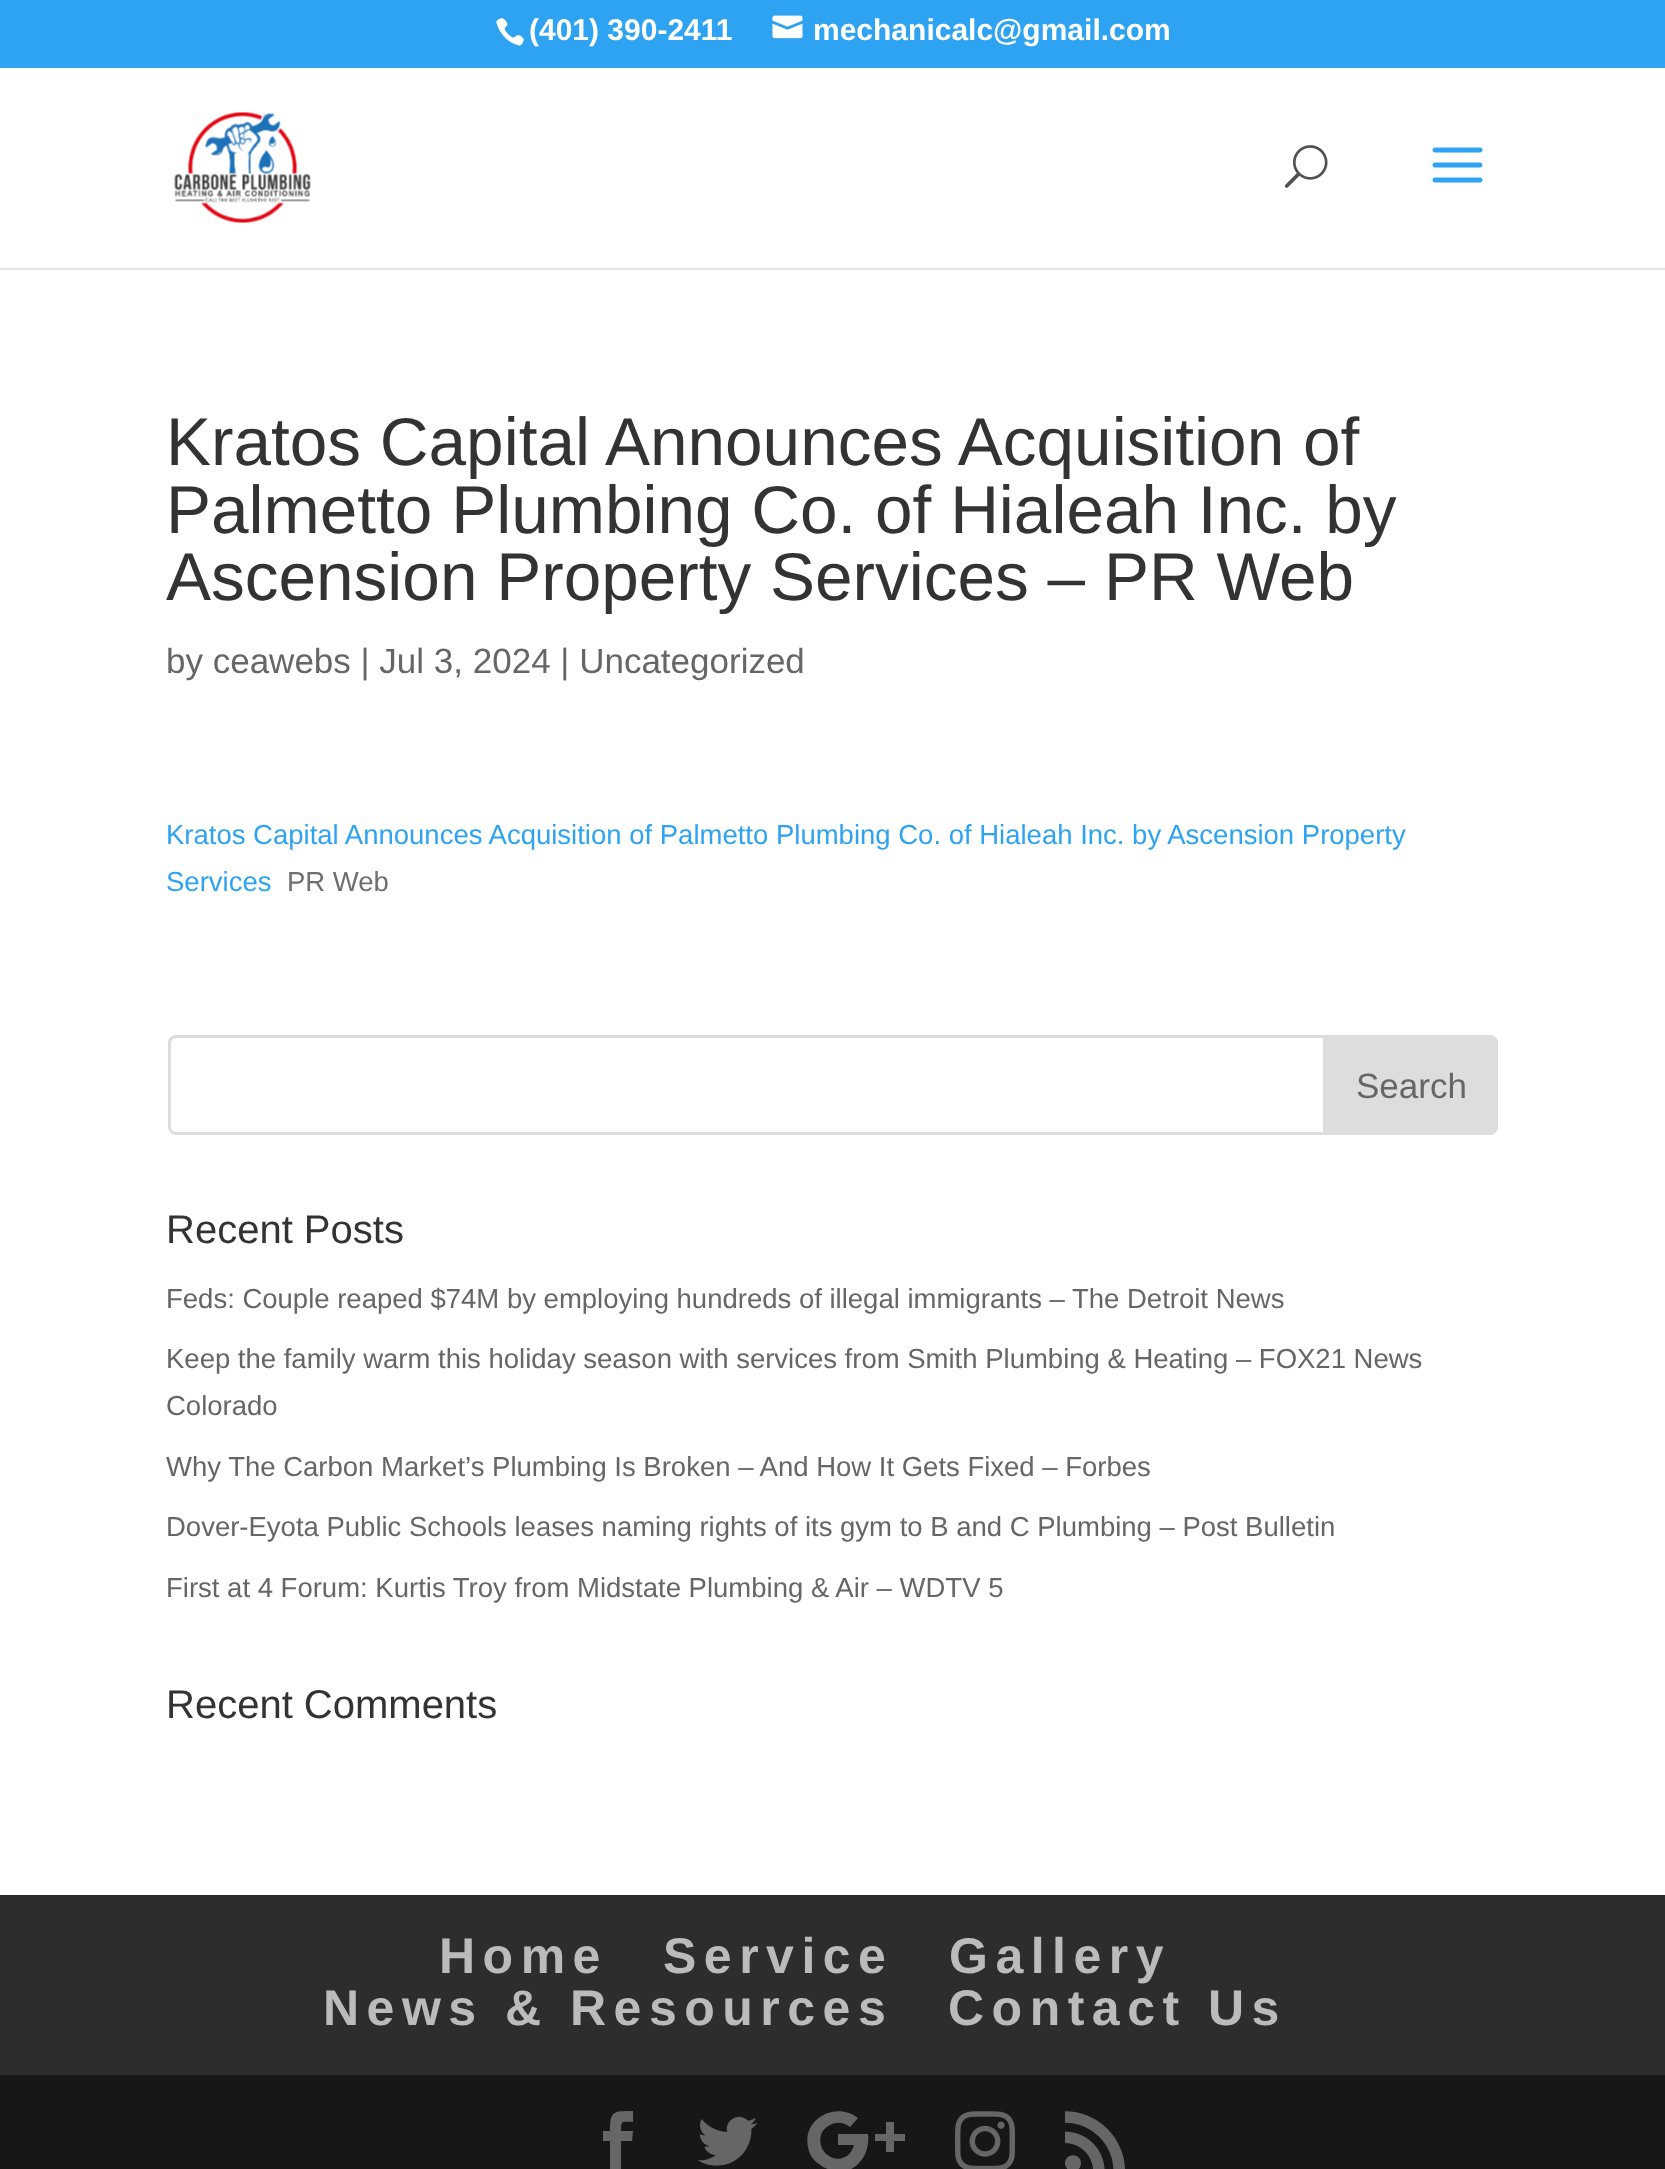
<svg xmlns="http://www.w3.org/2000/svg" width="1665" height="2169">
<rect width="100%" height="100%" fill="#fff"/>
<rect width="1665" height="68" fill="#2ea3f2"/>
<image x="496" y="18" width="28" height="28" href="media/1.png"/>
<text x="529" y="40" style="font-family:Liberation Sans;font-size:30px;font-weight:bold;fill:#fff">(401) 390-2411</text>
<image x="772" y="15" width="31" height="24" href="media/2.png"/>
<text x="813" y="40" style="font-family:Liberation Sans;font-size:30px;font-weight:bold;fill:#fff">mechanicalc@gmail.com</text>
<rect y="268" width="1665" height="2" fill="#e6e6e6"/>
<image x="174" y="112" width="137" height="111" href="media/3.png"/>
<image x="1284" y="145" width="44" height="43" href="media/4.png"/>
<image x="1432" y="147" width="51" height="36" href="media/5.png"/>
<text x="166" y="465" style="font-family:Liberation Sans;font-size:67.5px;fill:#333">Kratos Capital Announces Acquisition of</text>
<text x="166" y="533" style="font-family:Liberation Sans;font-size:67.5px;fill:#333">Palmetto Plumbing Co. of Hialeah Inc. by</text>
<text x="166" y="600" style="font-family:Liberation Sans;font-size:67.5px;fill:#333">Ascension Property Services – PR Web</text>
<text x="166" y="673" style="font-family:Liberation Sans;font-size:35px;fill:#666">by ceawebs | Jul 3, 2024 | Uncategorized</text>
<text x="166" y="844" style="font-family:Liberation Sans;font-size:27.5px;fill:#2ea3f2">Kratos Capital Announces Acquisition of Palmetto Plumbing Co. of Hialeah Inc. by Ascension Property</text>
<text x="166" y="891" style="font-family:Liberation Sans;font-size:27.5px;fill:#2ea3f2">Services</text>
<text x="287" y="891" style="font-family:Liberation Sans;font-size:27.5px;fill:#6f6f6f">PR Web</text>
<rect x="169.5" y="1036.5" width="1327" height="97" rx="6.5" fill="none" stroke="#ddd" stroke-width="3"/>
<path d="M1324.5 1036.5h165.5c3.5 0 6.5 3 6.5 6.5v84c0 3.5-3 6.5-6.5 6.5h-165.5z" fill="#ddd" stroke="#ddd" stroke-width="3"/>
<text x="1356" y="1098" style="font-family:Liberation Sans;font-size:35px;fill:#666">Search</text>
<text x="166" y="1243" style="font-family:Liberation Sans;font-size:40px;fill:#333">Recent Posts</text>
<text x="166" y="1308" style="font-family:Liberation Sans;font-size:27.5px;fill:#666">Feds: Couple reaped $74M by employing hundreds of illegal immigrants – The Detroit News</text>
<text x="166" y="1368" style="font-family:Liberation Sans;font-size:27.5px;fill:#666">Keep the family warm this holiday season with services from Smith Plumbing &amp; Heating – FOX21 News</text>
<text x="166" y="1415" style="font-family:Liberation Sans;font-size:27.5px;fill:#666">Colorado</text>
<text x="166" y="1476" style="font-family:Liberation Sans;font-size:27.5px;fill:#666">Why The Carbon Market’s Plumbing Is Broken – And How It Gets Fixed – Forbes</text>
<text x="166" y="1536" style="font-family:Liberation Sans;font-size:27.5px;fill:#666">Dover-Eyota Public Schools leases naming rights of its gym to B and C Plumbing – Post Bulletin</text>
<text x="166" y="1597" style="font-family:Liberation Sans;font-size:27.5px;fill:#666">First at 4 Forum: Kurtis Troy from Midstate Plumbing &amp; Air – WDTV 5</text>
<text x="166" y="1718" style="font-family:Liberation Sans;font-size:40px;fill:#333">Recent Comments</text>
<rect y="1895" width="1665" height="180" fill="#2d2d2d"/>
<text x="439" y="1973" style="font-family:Liberation Sans;font-size:50px;font-weight:bold;letter-spacing:7.5px;fill:#bbb">Home</text>
<text x="663" y="1973" style="font-family:Liberation Sans;font-size:50px;font-weight:bold;letter-spacing:7.5px;fill:#bbb">Service</text>
<text x="949" y="1973" style="font-family:Liberation Sans;font-size:50px;font-weight:bold;letter-spacing:7.5px;fill:#bbb">Gallery</text>
<text x="323" y="2025" style="font-family:Liberation Sans;font-size:50px;font-weight:bold;letter-spacing:7.5px;fill:#bbb">News &amp; Resources</text>
<text x="948" y="2025" style="font-family:Liberation Sans;font-size:50px;font-weight:bold;letter-spacing:7.5px;fill:#bbb">Contact Us</text>
<rect y="2075" width="1665" height="94" fill="#171717"/>
<path d="M610 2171h11v-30h11l1-10h-12c0-11 1-9 12-9v-11c-20 0-23 0-23 20h-7v10h7z" fill="#666"/>
<image x="697" y="2116" width="61" height="50" href="media/6.png"/>
<path d="M838 2134v11h16c-7 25-39 12-33-10c1-4 5-8 9-10c7-4 15-2 20 2l8-9c-21-17-56 0-50 29c1 7 5 13 11 17c7 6 17 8 26 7c17-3 25-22 23-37zm67 0h-11v-12h-8v12h-11v7h11v11h8v-11h11z" fill="#666"/>
<image x="955" y="2111" width="60" height="58" href="media/7.png"/>
<image x="1065" y="2111" width="60" height="58" href="media/8.png"/>
</svg>
